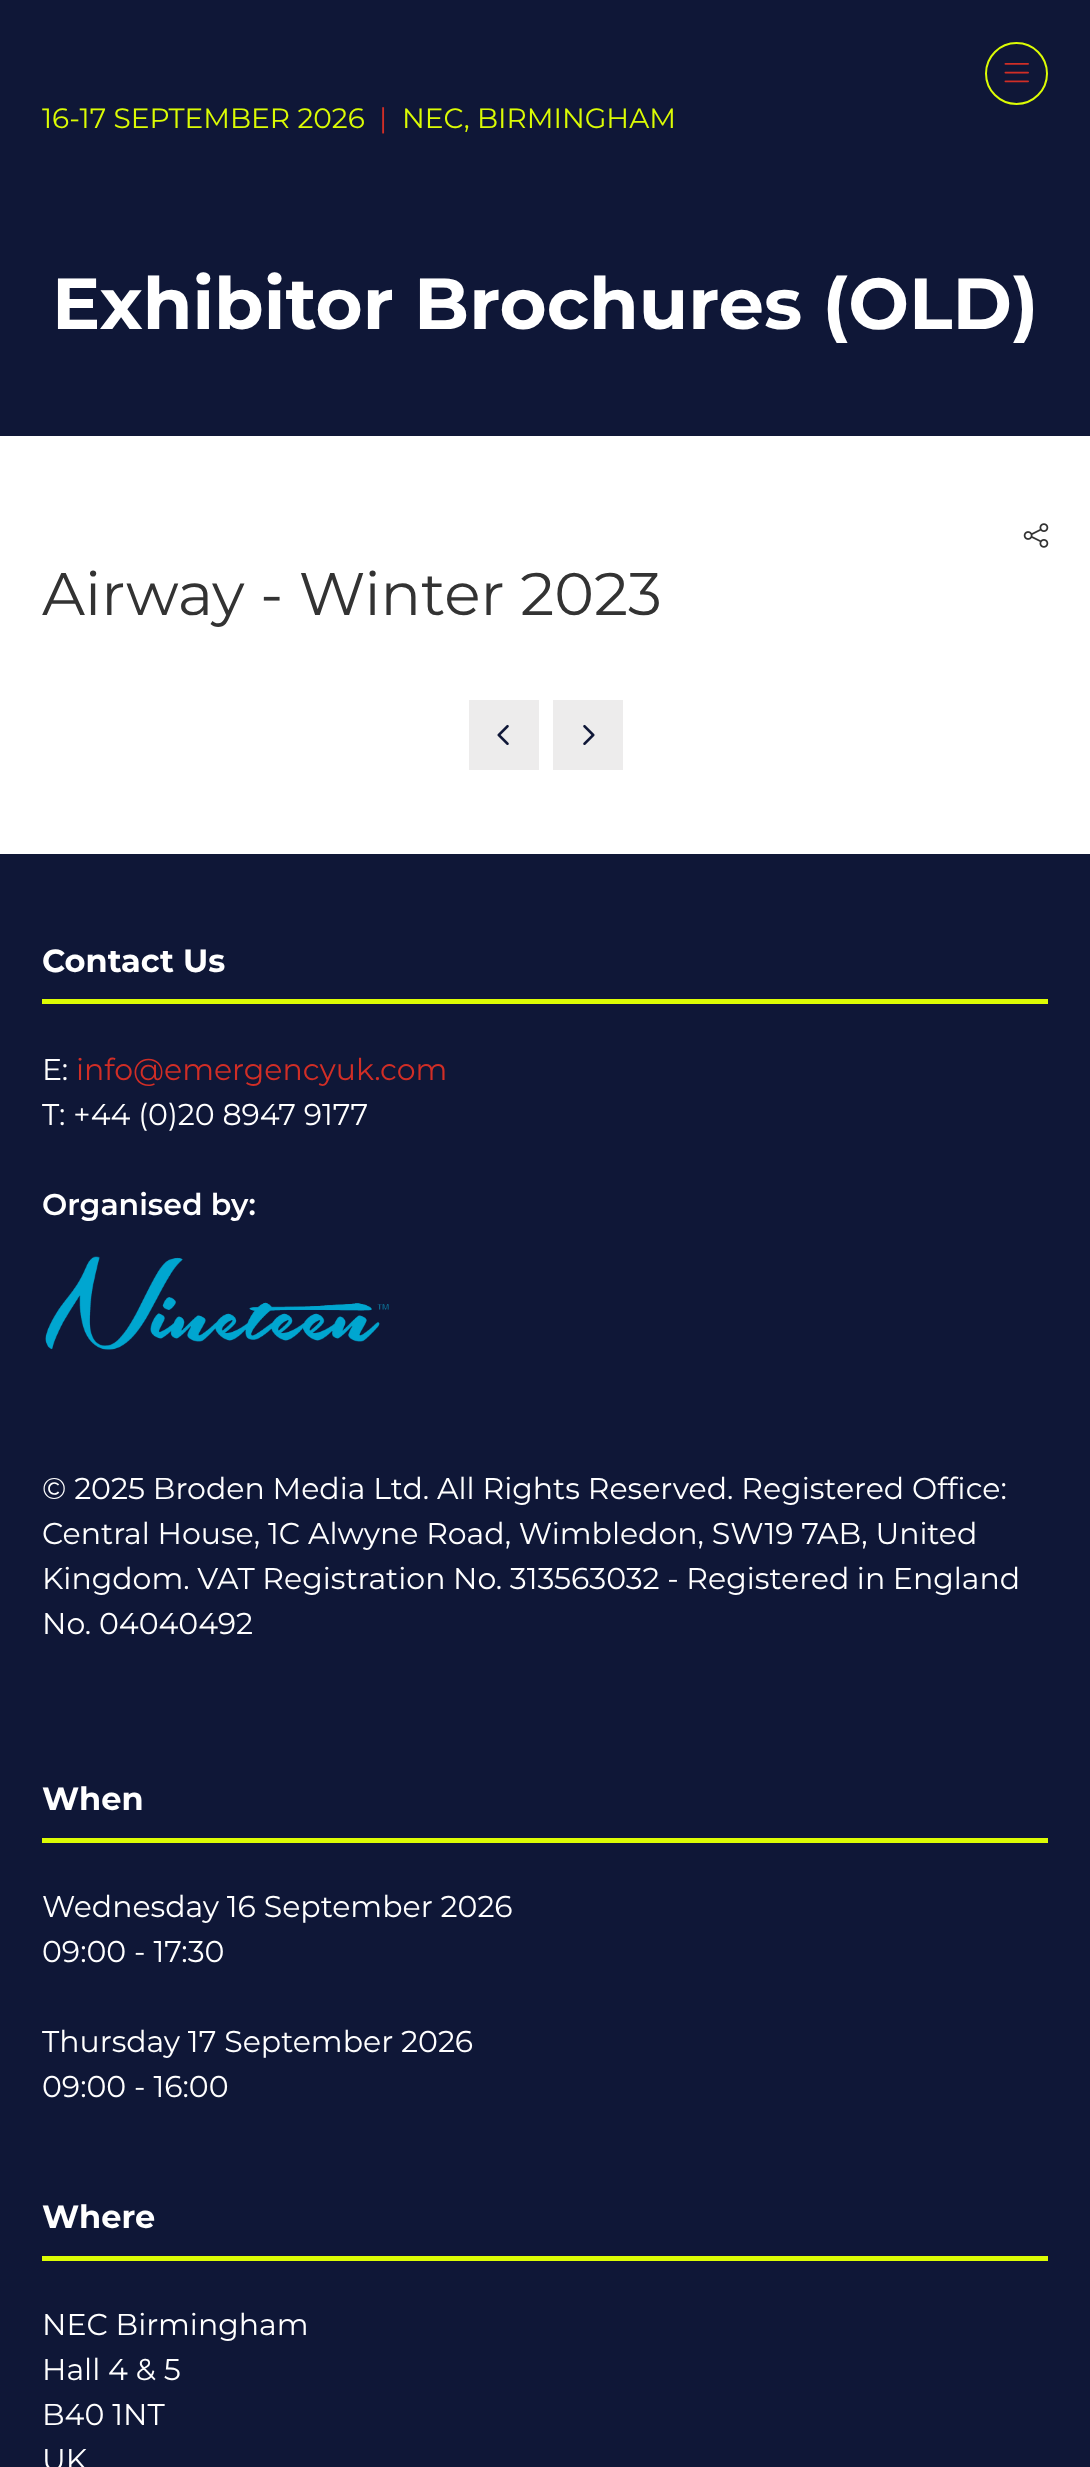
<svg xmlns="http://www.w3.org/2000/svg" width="1090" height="2467">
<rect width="100%" height="100%" fill="#fff"/>
<rect width="1090" height="436" fill="#0f1737"/>
<circle cx="1016.5" cy="73.5" r="30.5" fill="none" stroke="#dcfc04" stroke-width="2"/>
<image x="1004" y="63" width="25" height="20" href="media/1.png"/>
<text x="42" y="128" style="font-family:Montserrat;font-size:28px;fill:#dcfc04">16-17 SEPTEMBER 2026</text>
<text x="379" y="128" style="font-family:Montserrat;font-size:28px;fill:#d12e26">|</text>
<text x="402" y="128" style="font-family:Montserrat;font-size:28px;fill:#dcfc04">NEC, BIRMINGHAM</text>
<text x="52" y="329" style="font-family:Montserrat;font-size:72px;font-weight:bold;fill:#fff">Exhibitor Brochures (OLD)</text>
<image x="1023" y="523" width="26" height="25" href="media/2.png"/>
<text x="42" y="615" style="font-family:Montserrat;font-size:60px;fill:#333">Airway - Winter 2023</text>
<rect x="469" y="700" width="70" height="70" fill="#edecec"/>
<image x="497" y="724" width="12" height="21" href="media/3.png"/>
<rect x="553" y="700" width="70" height="70" fill="#edecec"/>
<image x="583" y="724" width="12" height="21" href="media/4.png"/>
<rect y="854" width="1090" height="1613" fill="#0f1737"/>
<text x="42" y="972" style="font-family:Montserrat;font-size:32px;font-weight:bold;fill:#fff">Contact Us</text>
<rect x="42" y="999" width="1006" height="5" fill="#dcfc04"/>
<text x="42" y="1080" style="font-family:Montserrat;font-size:30px;fill:#fff">E:</text>
<text x="76" y="1080" style="font-family:Montserrat;font-size:30px;fill:#d12e26">info@emergencyuk.com</text>
<text x="42" y="1125" style="font-family:Montserrat;font-size:30px;fill:#fff">T: +44 (0)20 8947 9177</text>
<text x="42" y="1215" style="font-family:Montserrat;font-size:30px;font-weight:600;fill:#fff">Organised by:</text>
<image x="45" y="1256" width="344" height="94" href="media/5.png"/>
<text x="42" y="1499" style="font-family:Montserrat;font-size:30px;fill:#fff">© 2025 Broden Media Ltd. All Rights Reserved. Registered Office:</text>
<text x="42" y="1544" style="font-family:Montserrat;font-size:30px;fill:#fff">Central House, 1C Alwyne Road, Wimbledon, SW19 7AB, United</text>
<text x="42" y="1589" word-spacing="-0.25" style="font-family:Montserrat;font-size:30px;fill:#fff">Kingdom. VAT Registration No. 313563032 - Registered in England</text>
<text x="42" y="1634" style="font-family:Montserrat;font-size:30px;fill:#fff">No. 04040492</text>
<text x="42" y="1810" style="font-family:Montserrat;font-size:32px;font-weight:bold;fill:#fff">When</text>
<rect x="42" y="1838" width="1006" height="5" fill="#dcfc04"/>
<text x="42" y="1917" style="font-family:Montserrat;font-size:30px;fill:#fff">Wednesday 16 September 2026</text>
<text x="42" y="1962" style="font-family:Montserrat;font-size:30px;fill:#fff">09:00 - 17:30</text>
<text x="42" y="2052" style="font-family:Montserrat;font-size:30px;fill:#fff">Thursday 17 September 2026</text>
<text x="42" y="2097" style="font-family:Montserrat;font-size:30px;fill:#fff">09:00 - 16:00</text>
<text x="42" y="2228" style="font-family:Montserrat;font-size:32px;font-weight:bold;fill:#fff">Where</text>
<rect x="42" y="2256" width="1006" height="5" fill="#dcfc04"/>
<text x="42" y="2335" style="font-family:Montserrat;font-size:30px;fill:#fff">NEC Birmingham</text>
<text x="42" y="2380" style="font-family:Montserrat;font-size:30px;fill:#fff">Hall 4 &amp; 5</text>
<text x="42" y="2425" style="font-family:Montserrat;font-size:30px;fill:#fff">B40 1NT</text>
<text x="42" y="2470" style="font-family:Montserrat;font-size:30px;fill:#fff">UK</text>
</svg>
